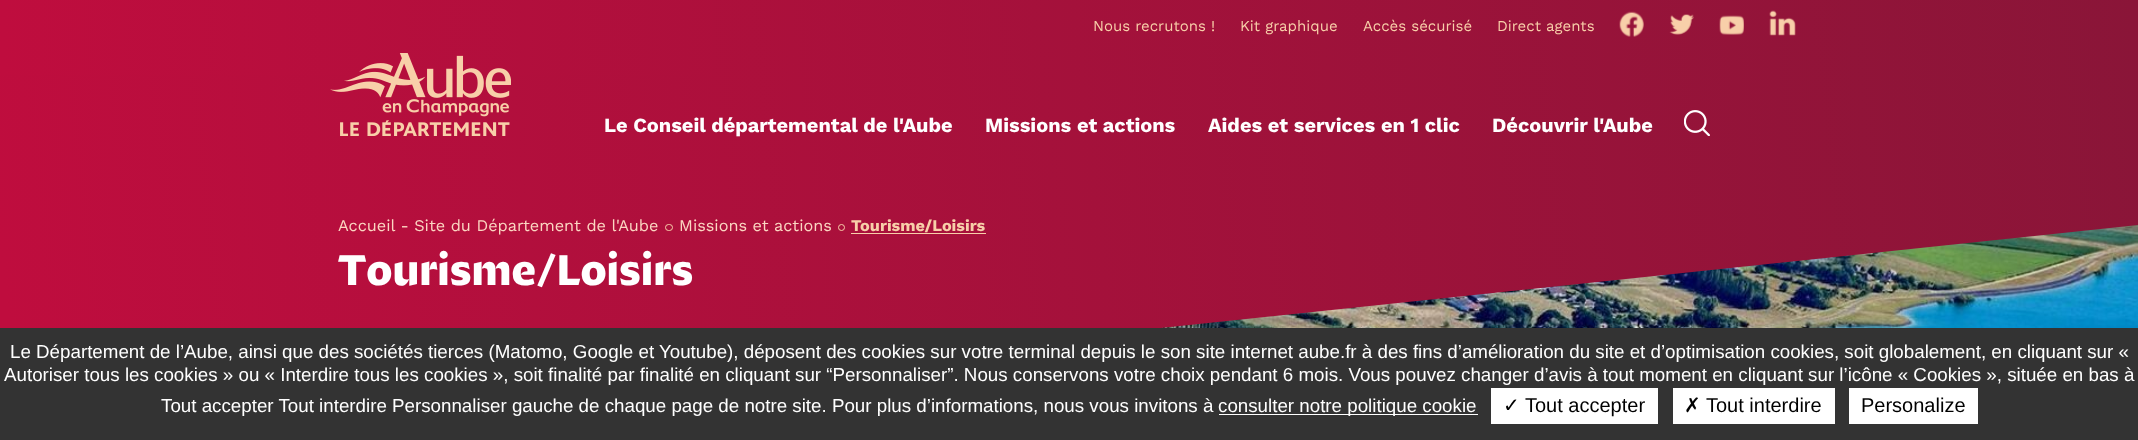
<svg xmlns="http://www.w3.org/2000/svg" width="2138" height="440">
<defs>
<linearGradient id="g1" gradientUnits="userSpaceOnUse" x1="0" y1="262" x2="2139" y2="38"><stop offset="0" stop-color="#bf0d3e"/><stop offset="1" stop-color="#8a1538"/></linearGradient>
<linearGradient id="g2" gradientUnits="userSpaceOnUse" x1="0" y1="79" x2="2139" y2="79"><stop offset="0" stop-color="#bf0d3e"/><stop offset="1" stop-color="#8a1538"/></linearGradient>
</defs>
<rect width="100%" height="100%" fill="#fff"/>
<image x="1160" y="225" width="978" height="103" href="media/7.png"/>
<path d="M0 75l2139-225v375l-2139 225z" fill="url(#g1)"/>
<rect width="713" height="75" fill="url(#g2)"/>
<image x="330" y="53" width="181" height="83" href="media/1.png"/>
<text x="1093" y="31" style="font-family:Work Sans;font-size:15px;fill:#f8cfa9">Nous recrutons !</text>
<text x="1240" y="31" style="font-family:Work Sans;font-size:15px;fill:#f8cfa9">Kit graphique</text>
<text x="1363" y="31" style="font-family:Work Sans;font-size:15px;fill:#f8cfa9">Accès sécurisé</text>
<text x="1497" y="31" style="font-family:Work Sans;font-size:15px;fill:#f8cfa9">Direct agents</text>
<image x="1619" y="11" width="25" height="26" href="media/2.png"/>
<image x="1669" y="14" width="25" height="21" href="media/3.png"/>
<image x="1719" y="15" width="25" height="20" href="media/4.png"/>
<image x="1769" y="10" width="27" height="26" href="media/5.png"/>
<text x="604" y="132" style="font-family:Work Sans;font-size:20px;font-weight:bold;fill:#fff">Le Conseil départemental de l'Aube</text>
<text x="985" y="132" style="font-family:Work Sans;font-size:20px;font-weight:bold;fill:#fff">Missions et actions</text>
<text x="1208" y="132" style="font-family:Work Sans;font-size:20px;font-weight:bold;fill:#fff">Aides et services en 1 clic</text>
<text x="1492" y="132" style="font-family:Work Sans;font-size:20px;font-weight:bold;fill:#fff">Découvrir l'Aube</text>
<image x="1684" y="110" width="26" height="26" href="media/6.png"/>
<text x="338" y="231" style="font-family:Work Sans;font-size:16.25px;fill:#fcd7c2">Accueil - Site du Département de l'Aube</text>
<rect x="665.5" y="224.5" width="7" height="6" rx="3" fill="none" stroke="#f8cfa9"/>
<text x="679" y="231" style="font-family:Work Sans;font-size:16.25px;fill:#fcd7c2">Missions et actions</text>
<circle cx="841.5" cy="227.5" r="3" fill="none" stroke="#f8cfa9"/>
<text x="851" y="231" style="font-family:Work Sans;font-size:16.25px;font-weight:bold;fill:#f8cfa9">Tourisme/Loisirs</text>
<rect x="851" y="233" width="135" height="1" fill="#f8cfa9"/>
<text x="338" y="285" style="font-family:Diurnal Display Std;font-size:42.5px;font-weight:bold;fill:#fff">Tourisme/Loisirs</text>
<rect y="328" width="2138" height="112" fill="#333"/>
<text x="10" y="358" style="font-family:Liberation Sans;font-size:18.75px;fill:#fff">Le Département de l’Aube, ainsi que des sociétés tierces (Matomo, Google et Youtube), déposent des cookies sur votre terminal depuis le son site internet aube.fr à des fins d’amélioration du site et d’optimisation cookies, soit globalement, en cliquant sur «</text>
<text x="4" y="381" style="font-family:Liberation Sans;font-size:18.75px;fill:#fff">Autoriser tous les cookies » ou « Interdire tous les cookies », soit finalité par finalité en cliquant sur “Personnaliser”. Nous conservons votre choix pendant 6 mois. Vous pouvez changer d’avis à tout moment en cliquant sur l’icône « Cookies », située en bas à</text>
<text x="161" y="412" style="font-family:Liberation Sans;font-size:18.75px;fill:#fff">Tout accepter Tout interdire Personnaliser gauche de chaque page de notre site. Pour plus d’informations, nous vous invitons à</text>
<rect x="1219" y="414" width="259" height="1" fill="#fff"/>
<text x="1218" y="412" style="font-family:Liberation Sans;font-size:18.75px;fill:#fff">consulter notre politique cookie</text>
<rect x="1491" y="388" width="167" height="36" fill="#fff"/>
<text x="1503" y="412" style="font-family:DejaVu Sans;font-size:20px;fill:#000">✓</text>
<text x="1525" y="412" style="font-family:Liberation Sans;font-size:20px;fill:#000">Tout accepter</text>
<rect x="1673" y="388" width="162" height="36" fill="#fff"/>
<text x="1684" y="412" style="font-family:DejaVu Sans;font-size:20px;fill:#000">✗</text>
<text x="1706" y="412" style="font-family:Liberation Sans;font-size:20px;fill:#000">Tout interdire</text>
<rect x="1849" y="388" width="129" height="36" fill="#fff"/>
<text x="1861" y="412" style="font-family:Liberation Sans;font-size:20px;fill:#000">Personalize</text>
</svg>
